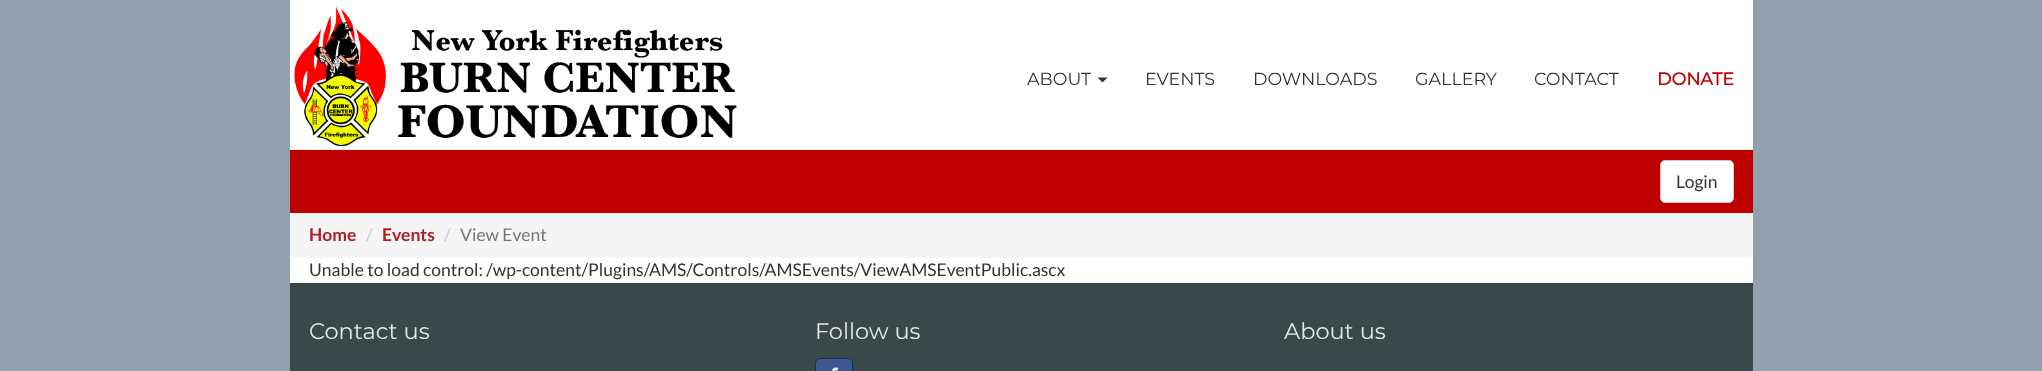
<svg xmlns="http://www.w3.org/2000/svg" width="2042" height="371">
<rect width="100%" height="100%" fill="#92a1ad"/>
<rect x="290" width="1463" height="149" fill="#fff"/>
<rect x="290" y="149" width="1463" height="1" fill="#e0eded"/>
<image x="294" y="6" width="443" height="140" href="media/1.png"/>
<text x="1027" y="85" style="font-family:Montserrat;font-size:17.5px;font-weight:100;fill:#333">ABOUT</text>
<path d="M1097.5 77.5h10l-5 5z" fill="#333"/>
<text x="1145" y="85" style="font-family:Montserrat;font-size:17.5px;font-weight:100;fill:#333">EVENTS</text>
<text x="1253" y="85" style="font-family:Montserrat;font-size:17.5px;font-weight:100;fill:#333">DOWNLOADS</text>
<text x="1415" y="85" style="font-family:Montserrat;font-size:17.5px;font-weight:100;fill:#333">GALLERY</text>
<text x="1534" y="85" style="font-family:Montserrat;font-size:17.5px;font-weight:100;fill:#333">CONTACT</text>
<text x="1657" y="85" style="font-family:Montserrat;font-size:17.5px;font-weight:bold;fill:#bf0000">DONATE</text>
<rect x="290" y="150" width="1463" height="63" fill="#bf0000"/>
<rect x="1660.5" y="160.5" width="73" height="42" rx="4.5" fill="#fff" stroke="#ccc"/>
<text x="1676" y="188" style="font-family:Lato;font-size:17.5px;fill:#333">Login</text>
<rect x="290" y="213" width="1463" height="70" fill="#fff"/>
<rect x="290" y="213" width="1463" height="45" rx="5" fill="#f5f5f5"/>
<text x="309" y="241" style="font-family:Lato;font-size:17.5px;font-weight:bold;fill:#ab2125">Home</text>
<text x="366" y="241" style="font-family:Lato;font-size:17.5px;fill:#ccc">/</text>
<text x="382" y="241" style="font-family:Lato;font-size:17.5px;font-weight:bold;fill:#ab2125">Events</text>
<text x="444" y="241" style="font-family:Lato;font-size:17.5px;fill:#ccc">/</text>
<text x="460" y="241" style="font-family:Lato;font-size:17.5px;fill:#777">View Event</text>
<text x="309" y="276" style="font-family:Lato;font-size:17.5px;fill:#333">Unable to load control: /wp-content/Plugins/AMS/Controls/AMSEvents/ViewAMSEventPublic.ascx</text>
<rect x="290" y="283" width="1463" height="88" fill="#394848"/>
<text x="309" y="339" style="font-family:Montserrat;font-size:22.5px;font-weight:100;fill:#e3e8e8">Contact us</text>
<text x="815" y="339" style="font-family:Montserrat;font-size:22.5px;font-weight:100;fill:#e3e8e8">Follow us</text>
<rect x="815.5" y="358.5" width="37" height="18" rx="4.5" fill="#3b5790" stroke="#1a305c"/>
<image x="832" y="367" width="7" height="4" href="media/2.png"/>
<text x="1284" y="339" style="font-family:Montserrat;font-size:22.5px;font-weight:100;fill:#e3e8e8">About us</text>
</svg>
